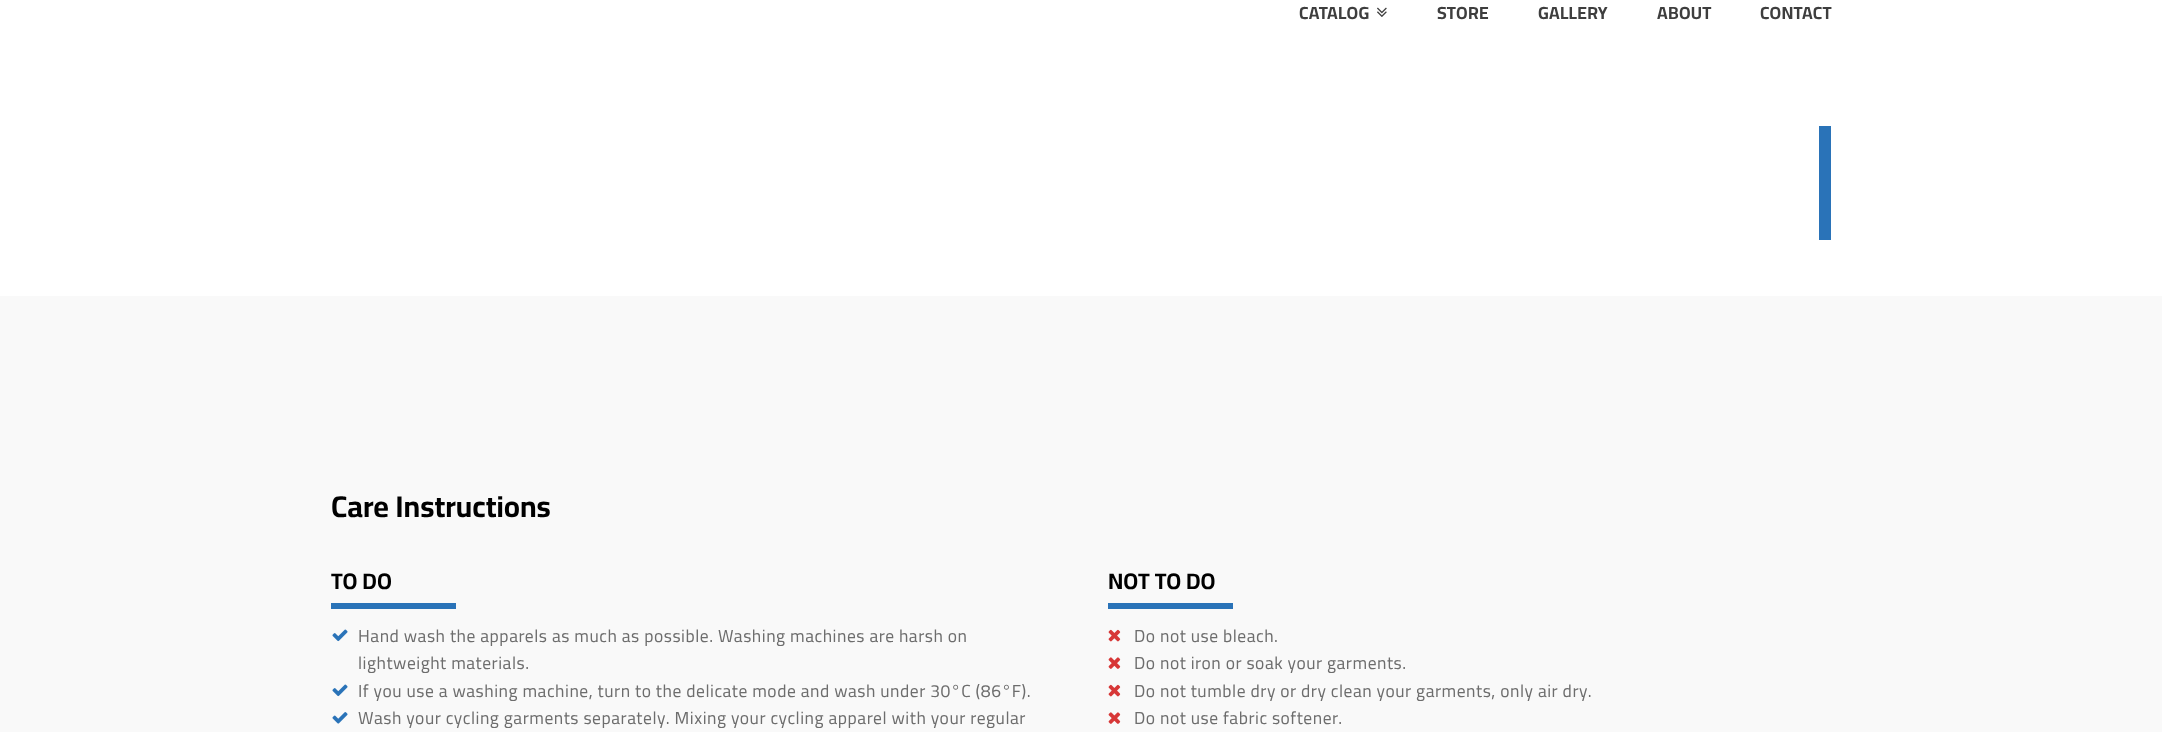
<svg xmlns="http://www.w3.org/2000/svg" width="2162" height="732">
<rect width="100%" height="100%" fill="#fff"/>
<text x="1299" y="19" style="font-family:Cairo;font-size:17.5px;font-weight:bold;letter-spacing:0.25px;fill:#3e3e3e">CATALOG</text>
<image x="1377" y="7" width="10" height="10" href="media/1.png"/>
<text x="1437" y="19" style="font-family:Cairo;font-size:17.5px;font-weight:bold;letter-spacing:0.25px;fill:#3e3e3e">STORE</text>
<text x="1538" y="19" style="font-family:Cairo;font-size:17.5px;font-weight:bold;letter-spacing:0.25px;fill:#3e3e3e">GALLERY</text>
<text x="1657" y="19" style="font-family:Cairo;font-size:17.5px;font-weight:bold;letter-spacing:0.25px;fill:#3e3e3e">ABOUT</text>
<text x="1760" y="19" style="font-family:Cairo;font-size:17.5px;font-weight:bold;letter-spacing:0.25px;fill:#3e3e3e">CONTACT</text>
<rect x="1819" y="126" width="12" height="114" fill="#2a73b8"/>
<rect y="296" width="2162" height="436" fill="#f9f9f9"/>
<text x="331" y="517" style="font-family:Cairo;font-size:30px;font-weight:bold;fill:#000">Care Instructions</text>
<text x="331" y="589" style="font-family:Cairo;font-size:22.5px;font-weight:bold;fill:#000">TO DO</text>
<rect x="331" y="603" width="125" height="6" fill="#2a73b8"/>
<image x="332" y="629" width="16" height="13" href="media/2.png"/>
<text x="358" y="642" style="font-family:Cairo;font-size:17.5px;letter-spacing:0.53px;fill:#6d6d6d">Hand wash the apparels as much as possible. Washing machines are harsh on</text>
<text x="358" y="669" style="font-family:Cairo;font-size:17.5px;letter-spacing:0.53px;fill:#6d6d6d">lightweight materials.</text>
<image x="332" y="684" width="16" height="13" href="media/2.png"/>
<text x="358" y="697" style="font-family:Cairo;font-size:17.5px;letter-spacing:0.53px;fill:#6d6d6d">If you use a washing machine, turn to the delicate mode and wash under 30°C (86°F).</text>
<image x="332" y="712" width="16" height="12" href="media/3.png"/>
<text x="358" y="724" style="font-family:Cairo;font-size:17.5px;letter-spacing:0.53px;fill:#6d6d6d">Wash your cycling garments separately. Mixing your cycling apparel with your regular</text>
<text x="1108" y="589" style="font-family:Cairo;font-size:22.5px;font-weight:bold;fill:#000">NOT TO DO</text>
<rect x="1108" y="603" width="125" height="6" fill="#2a73b8"/>
<image x="1108" y="629" width="13" height="13" href="media/4.png"/>
<text x="1134" y="642" style="font-family:Cairo;font-size:17.5px;letter-spacing:0.53px;fill:#6d6d6d">Do not use bleach.</text>
<image x="1108" y="657" width="13" height="12" href="media/5.png"/>
<text x="1134" y="669" style="font-family:Cairo;font-size:17.5px;letter-spacing:0.53px;fill:#6d6d6d">Do not iron or soak your garments.</text>
<image x="1108" y="684" width="13" height="13" href="media/4.png"/>
<text x="1134" y="697" style="font-family:Cairo;font-size:17.5px;letter-spacing:0.53px;fill:#6d6d6d">Do not tumble dry or dry clean your garments, only air dry.</text>
<image x="1108" y="712" width="13" height="12" href="media/5.png"/>
<text x="1134" y="724" style="font-family:Cairo;font-size:17.5px;letter-spacing:0.53px;fill:#6d6d6d">Do not use fabric softener.</text>
</svg>
